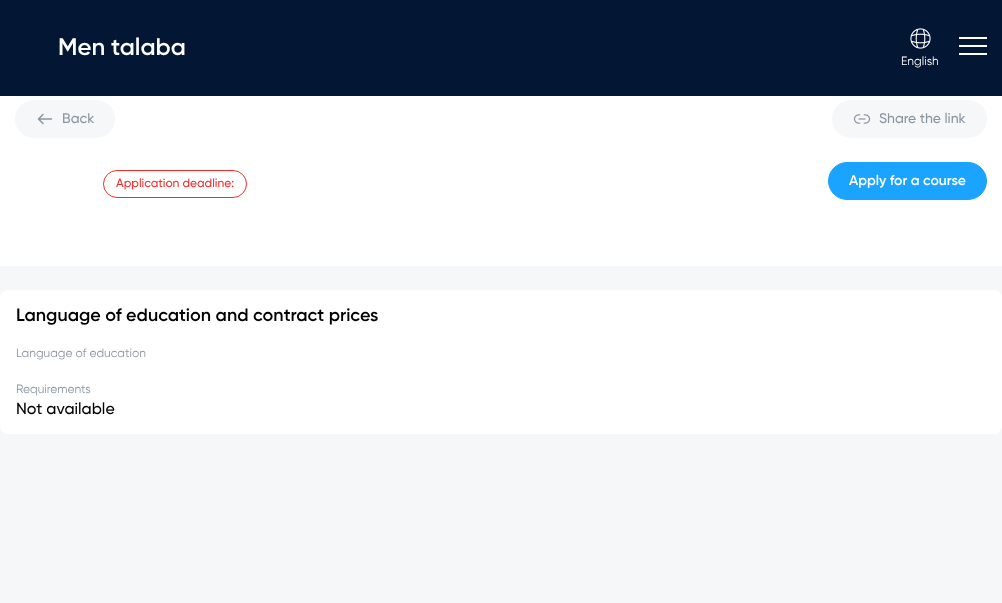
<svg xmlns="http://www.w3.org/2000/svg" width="1002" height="603">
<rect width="100%" height="100%" fill="#f5f7f9"/>
<rect width="1002" height="96" fill="#031633"/>
<text x="58" y="55" style="font-family:Gilroy;font-size:24px;font-weight:600;fill:#fff">Men talaba</text>
<rect x="959" y="37" width="28" height="2" fill="#fff"/>
<rect x="959" y="45" width="28" height="2" fill="#fff"/>
<rect x="959" y="53" width="28" height="2" fill="#fff"/>
<image x="910" y="28" width="21" height="21" href="media/1.png"/>
<text x="901" y="65" style="font-family:Gilroy;font-size:12px;fill:#fff">English</text>
<rect y="96" width="1002" height="170" fill="#fff"/>
<rect x="15" y="100" width="100" height="38" rx="19" fill="#f5f7f9"/>
<path d="M43 114.5l-4.5 4.5l4.5 4.5m8.5-4.5h-12.5" fill="none" stroke="#8996a2" stroke-width="1.5" stroke-linecap="round" stroke-linejoin="round"/>
<text x="62" y="123" style="font-family:Gilroy;font-size:14px;font-weight:500;fill:#8996a2">Back</text>
<rect x="832" y="100" width="155" height="38" rx="19" fill="#f5f7f9"/>
<image x="853" y="114" width="18" height="10" href="media/2.png"/>
<text x="879" y="123" style="font-family:Gilroy;font-size:14px;font-weight:500;fill:#8996a2">Share the link</text>
<rect x="103.5" y="170.5" width="143" height="27" rx="13.5" fill="none" stroke="#f42c2c"/>
<text x="116" y="187" style="font-family:Gilroy;font-size:12px;font-weight:500;fill:#f42c2c">Application deadline:</text>
<rect x="828.5" y="162.5" width="158" height="37" rx="18.5" fill="#1aa4ff" stroke="#1aa4ff"/>
<text x="849" y="185" style="font-family:Gilroy;font-size:14px;font-weight:600;fill:#fff">Apply for a course</text>
<rect y="290" width="1002" height="144" rx="8" fill="#fff"/>
<text x="16" y="321" style="font-family:Gilroy;font-size:18px;font-weight:600;fill:#000">Language of education and contract prices</text>
<text x="16" y="357" style="font-family:Gilroy;font-size:12px;fill:#8996a2">Language of education</text>
<text x="16" y="393" style="font-family:Gilroy;font-size:12px;fill:#8996a2">Requirements</text>
<text x="16" y="414" style="font-family:Gilroy;font-size:16px;font-weight:500;fill:#000">Not available</text>
</svg>
